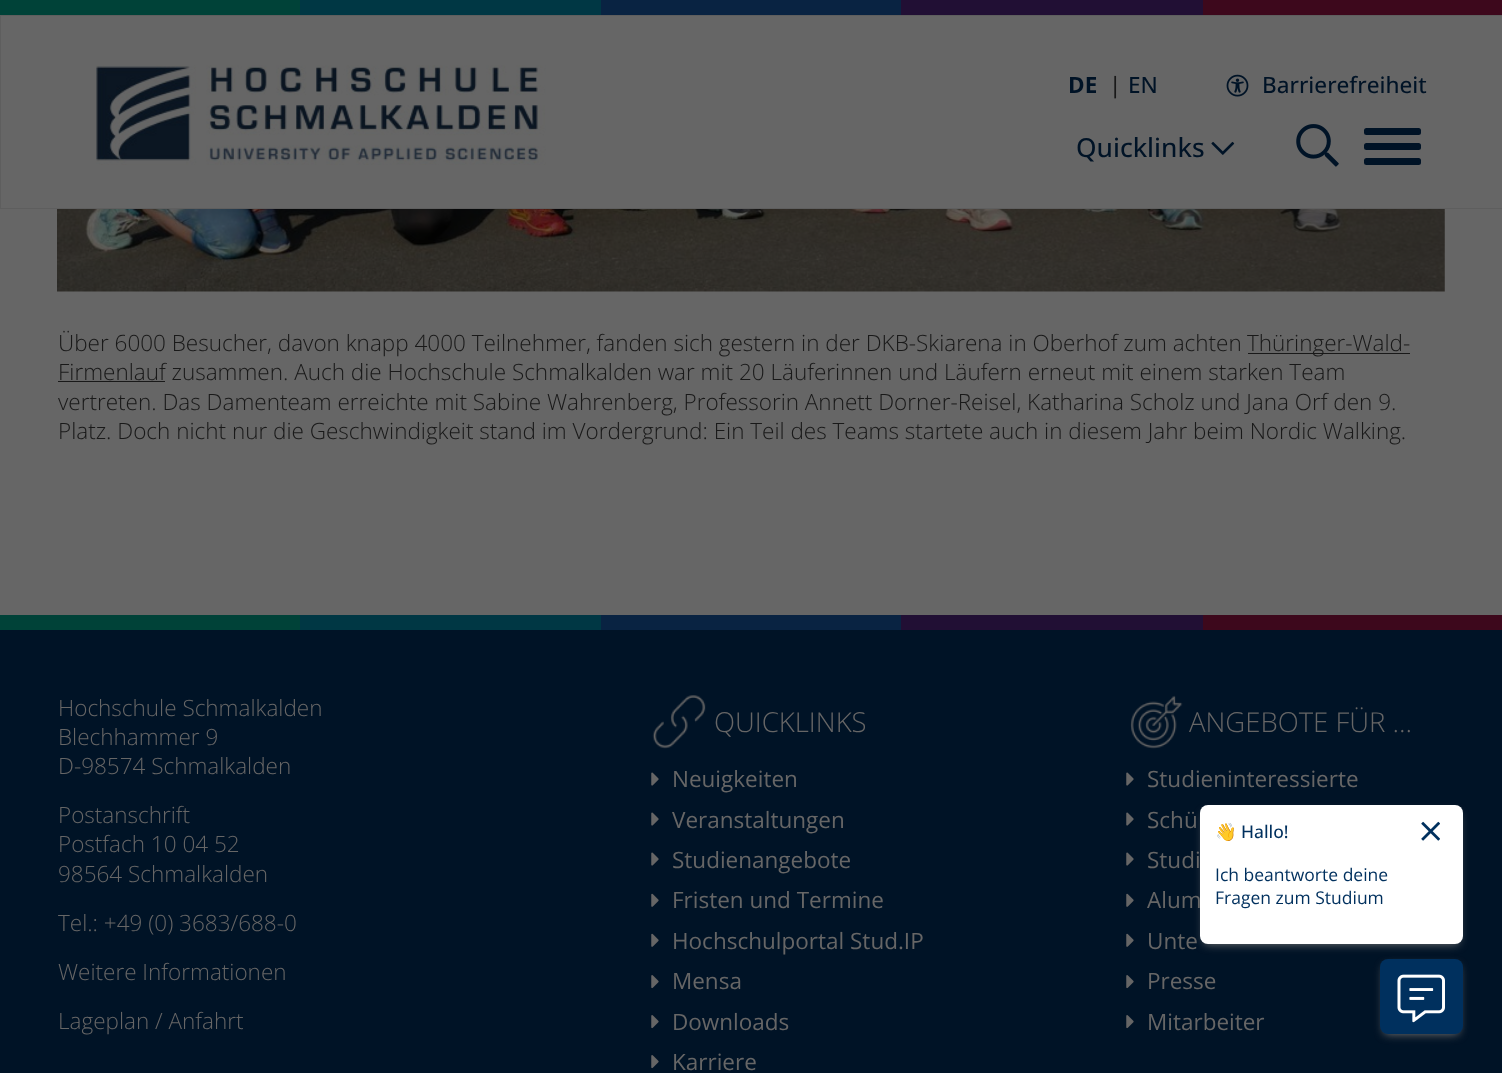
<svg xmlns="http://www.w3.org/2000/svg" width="1502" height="1073">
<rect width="100%" height="100%" fill="#666"/>
<rect width="300" height="15" fill="#004238"/>
<rect x="300" width="301" height="15" fill="#003744"/>
<rect x="601" width="300" height="15" fill="#092342"/>
<rect x="901" width="302" height="15" fill="#210f34"/>
<rect x="1203" width="299" height="15" fill="#3d081c"/>
<rect x="0.5" y="15.5" width="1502" height="193" fill="none" stroke="#5e5e5e"/>
<image x="96" y="65" width="450" height="100" href="media/1.png"/>
<text x="1068" y="93" style="font-family:Open Sans;font-size:22.5px;font-weight:bold;fill:#001326">DE</text>
<text x="1109" y="93" style="font-family:Open Sans;font-size:22.5px;font-weight:500;fill:#191919">|</text>
<text x="1128" y="93" style="font-family:Open Sans;font-size:22.5px;font-weight:500;fill:#001326">EN</text>
<image x="1226" y="74" width="23" height="23" href="media/2.png"/>
<text x="1262" y="93" style="font-family:Open Sans;font-size:22.5px;font-weight:500;fill:#001326">Barrierefreiheit</text>
<text x="1076" y="157" style="font-family:Open Sans;font-size:26.25px;font-weight:500;fill:#001326">Quicklinks</text>
<image x="1211" y="141" width="24" height="14" href="media/3.png"/>
<image x="1296" y="124" width="43" height="43" href="media/4.png"/>
<rect x="1364" y="128" width="57" height="7" rx="2.5" fill="#001326"/>
<rect x="1364" y="143" width="57" height="7" rx="2.5" fill="#001326"/>
<rect x="1364" y="158" width="57" height="7" rx="2.5" fill="#001326"/>
<image x="57" y="209" width="1388" height="83" href="media/5.png"/>
<text x="58" y="351" style="font-family:Open Sans;font-size:22.5px;font-weight:300;fill:#191919">Über 6000 Besucher, davon knapp 4000 Teilnehmer, fanden sich gestern in der DKB-Skiarena in Oberhof zum achten</text>
<rect x="1248" y="353" width="162" height="1" fill="#191919"/>
<text x="1247" y="351" style="font-family:Open Sans;font-size:22.5px;font-weight:300;fill:#191919">Thüringer-Wald-</text>
<text x="58" y="380" style="font-family:Open Sans;font-size:22.5px;font-weight:300;fill:#191919">Firmenlauf zusammen. Auch die Hochschule Schmalkalden war mit 20 Läuferinnen und Läufern erneut mit einem starken Team</text>
<rect x="58" y="381" width="107" height="1" fill="#191919"/>
<text x="58" y="410" style="font-family:Open Sans;font-size:22.5px;font-weight:300;fill:#191919">vertreten. Das Damenteam erreichte mit Sabine Wahrenberg, Professorin Annett Dorner-Reisel, Katharina Scholz und Jana Orf den 9.</text>
<text x="58" y="439" style="font-family:Open Sans;font-size:22.5px;font-weight:300;fill:#191919">Platz. Doch nicht nur die Geschwindigkeit stand im Vordergrund: Ein Teil des Teams startete auch in diesem Jahr beim Nordic Walking.</text>
<rect y="630" width="1502" height="443" fill="#001326"/>
<rect y="615" width="300" height="15" fill="#004238"/>
<rect x="300" y="615" width="301" height="15" fill="#003744"/>
<rect x="601" y="615" width="300" height="15" fill="#092342"/>
<rect x="901" y="615" width="302" height="15" fill="#210f34"/>
<rect x="1203" y="615" width="299" height="15" fill="#3d081c"/>
<text x="58" y="716" style="font-family:Open Sans;font-size:22.5px;font-weight:300;fill:#666">Hochschule Schmalkalden</text>
<text x="58" y="745" style="font-family:Open Sans;font-size:22.5px;font-weight:300;fill:#666">Blechhammer 9</text>
<text x="58" y="774" style="font-family:Open Sans;font-size:22.5px;font-weight:300;fill:#666">D-98574 Schmalkalden</text>
<text x="58" y="823" style="font-family:Open Sans;font-size:22.5px;font-weight:300;fill:#666">Postanschrift</text>
<text x="58" y="852" style="font-family:Open Sans;font-size:22.5px;font-weight:300;fill:#666">Postfach 10 04 52</text>
<text x="58" y="882" style="font-family:Open Sans;font-size:22.5px;font-weight:300;fill:#666">98564 Schmalkalden</text>
<text x="58" y="931" style="font-family:Open Sans;font-size:22.5px;font-weight:300;fill:#666">Tel.: +49 (0) 3683/688-0</text>
<text x="58" y="980" style="font-family:Open Sans;font-size:22.5px;font-weight:300;fill:#666">Weitere Informationen</text>
<text x="58" y="1029" style="font-family:Open Sans;font-size:22.5px;font-weight:300;fill:#666">Lageplan / Anfahrt</text>
<image x="652" y="695" width="54" height="54" href="media/6.png"/>
<text x="714" y="732" style="font-family:Open Sans;font-size:27.5px;font-weight:300;fill:#666">QUICKLINKS</text>
<image x="651" y="772" width="8" height="14" href="media/7.png"/>
<text x="672" y="787" style="font-family:Open Sans;font-size:22.5px;fill:#666">Neuigkeiten</text>
<image x="651" y="812" width="8" height="14" href="media/7.png"/>
<text x="672" y="828" style="font-family:Open Sans;font-size:22.5px;fill:#666">Veranstaltungen</text>
<image x="651" y="852" width="8" height="14" href="media/7.png"/>
<text x="672" y="868" style="font-family:Open Sans;font-size:22.5px;fill:#666">Studienangebote</text>
<image x="651" y="893" width="8" height="14" href="media/8.png"/>
<text x="672" y="908" style="font-family:Open Sans;font-size:22.5px;fill:#666">Fristen und Termine</text>
<image x="651" y="933" width="8" height="14" href="media/8.png"/>
<text x="672" y="949" style="font-family:Open Sans;font-size:22.5px;fill:#666">Hochschulportal Stud.IP</text>
<image x="651" y="975" width="8" height="14" href="media/9.png"/>
<text x="672" y="989" style="font-family:Open Sans;font-size:22.5px;fill:#666">Mensa</text>
<image x="651" y="1015" width="8" height="14" href="media/9.png"/>
<text x="672" y="1030" style="font-family:Open Sans;font-size:22.5px;fill:#666">Downloads</text>
<image x="651" y="1055" width="8" height="14" href="media/9.png"/>
<text x="672" y="1070" style="font-family:Open Sans;font-size:22.5px;fill:#666">Karriere</text>
<image x="1130" y="695" width="53" height="54" href="media/10.png"/>
<text x="1189" y="732" style="font-family:Open Sans;font-size:27.5px;font-weight:300;fill:#666">ANGEBOTE FÜR ...</text>
<image x="1126" y="772" width="8" height="14" href="media/7.png"/>
<text x="1147" y="787" style="font-family:Open Sans;font-size:22.5px;fill:#666">Studieninteressierte</text>
<image x="1126" y="812" width="8" height="14" href="media/7.png"/>
<text x="1147" y="828" style="font-family:Open Sans;font-size:22.5px;fill:#666">Schü</text>
<image x="1126" y="852" width="8" height="14" href="media/7.png"/>
<text x="1147" y="868" style="font-family:Open Sans;font-size:22.5px;fill:#666">Studi</text>
<image x="1126" y="893" width="8" height="14" href="media/8.png"/>
<text x="1147" y="908" style="font-family:Open Sans;font-size:22.5px;fill:#666">Alum</text>
<image x="1126" y="933" width="8" height="14" href="media/8.png"/>
<text x="1147" y="949" style="font-family:Open Sans;font-size:22.5px;fill:#666">Unte</text>
<image x="1126" y="975" width="8" height="14" href="media/9.png"/>
<text x="1147" y="989" style="font-family:Open Sans;font-size:22.5px;fill:#666">Presse</text>
<image x="1126" y="1015" width="8" height="14" href="media/9.png"/>
<text x="1147" y="1030" style="font-family:Open Sans;font-size:22.5px;fill:#666">Mitarbeiter</text>
<rect x="1384" y="966" width="75" height="68" rx="4" fill="#777" filter="blur(5px)"/>
<rect x="1380" y="959" width="83" height="75" rx="8" fill="#00305e"/>
<rect x="1204" y="813" width="255" height="131" rx="4" fill="#777" filter="blur(5px)"/>
<rect x="1200" y="805" width="263" height="139" rx="8" fill="#fff"/>
<text x="1215" y="838" style="font-family:Noto Color Emoji;font-size:17.5px;fill:#00305e">👋</text>
<text x="1241" y="838" style="font-family:Open Sans;font-size:17.5px;font-weight:500;fill:#00305e">Hallo!</text>
<text x="1215" y="881" style="font-family:Open Sans;font-size:17.5px;fill:#00305e">Ich beantworte deine</text>
<text x="1215" y="904" style="font-family:Open Sans;font-size:17.5px;fill:#00305e">Fragen zum Studium</text>
<image x="1421" y="821" width="19" height="20" href="media/11.png"/>
<image x="1397" y="974" width="48" height="49" href="media/12.png"/>
</svg>
